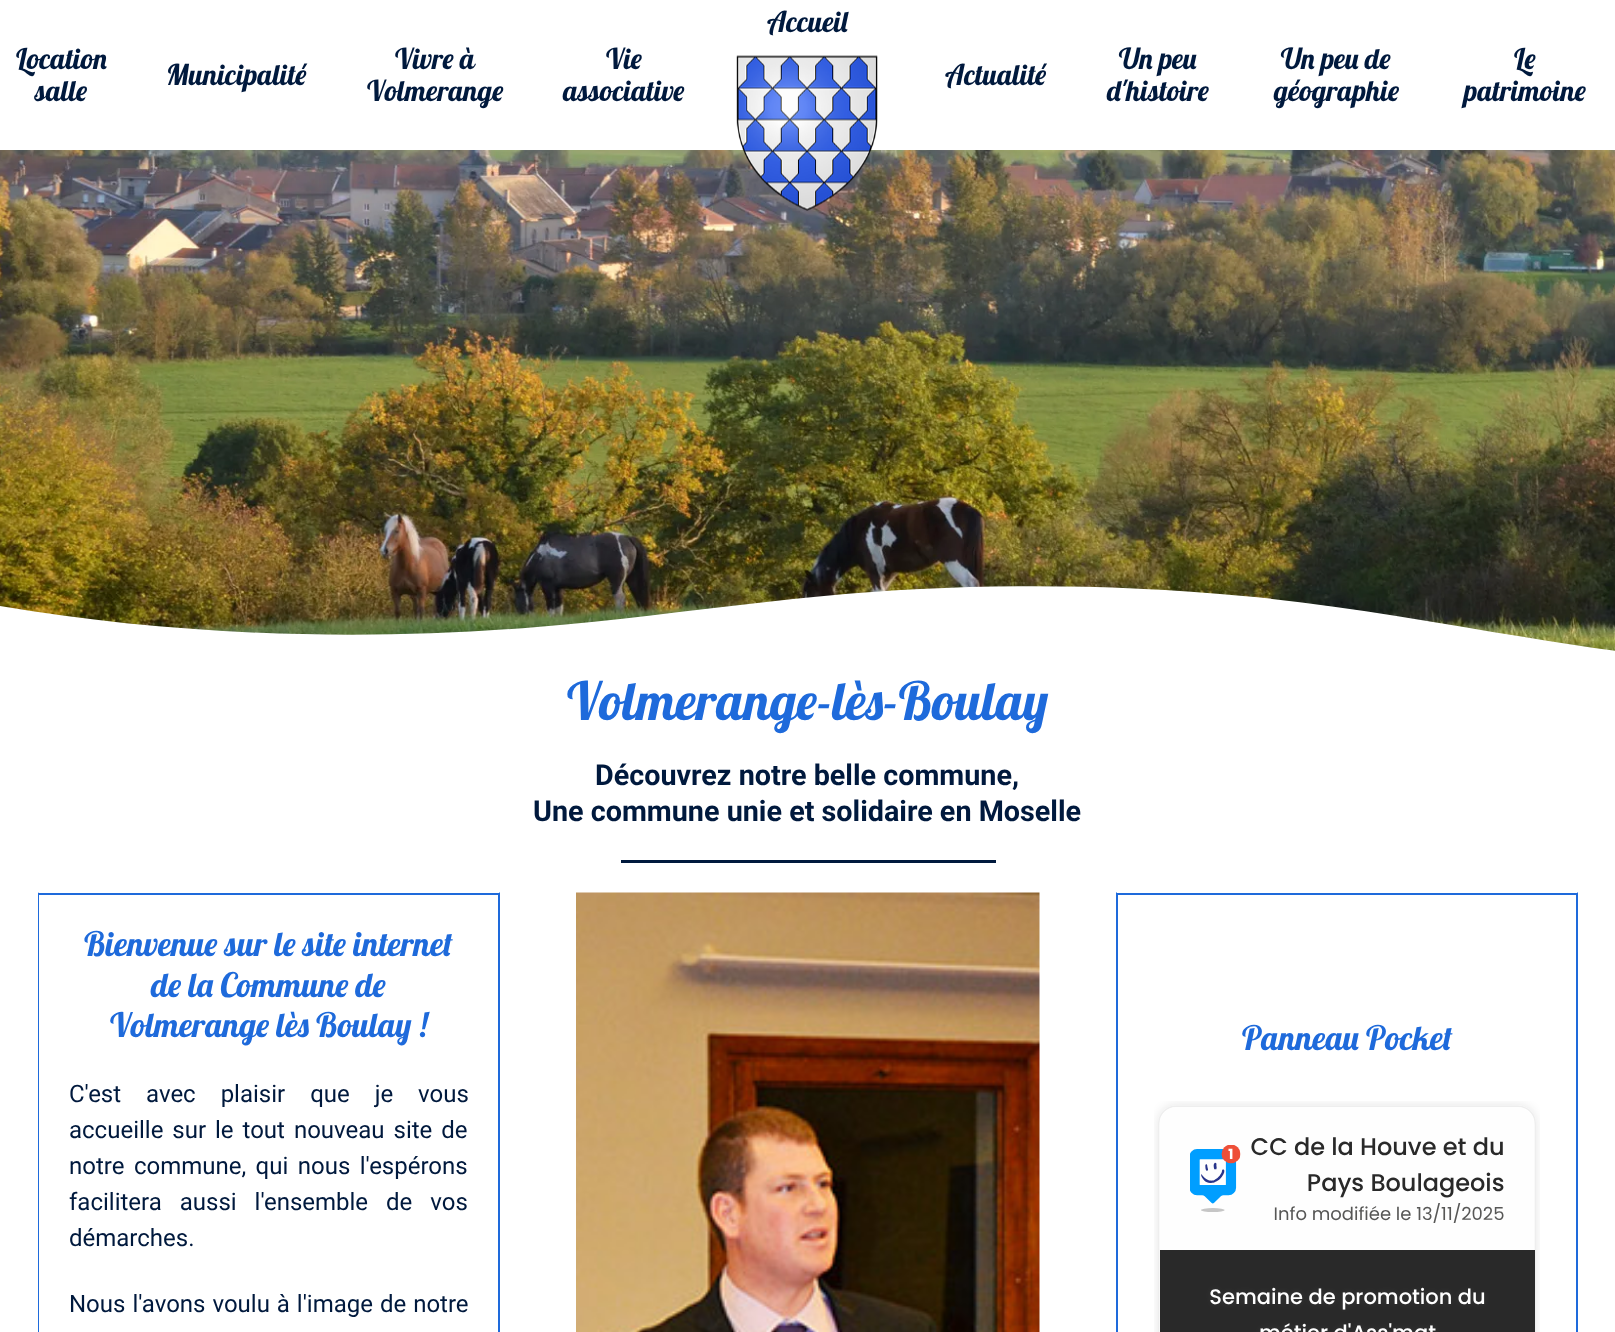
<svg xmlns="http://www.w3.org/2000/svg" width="1615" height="1332">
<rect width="100%" height="100%" fill="#fff"/>
<text x="767" y="32" style="font-family:Lobster;font-size:28.75px;fill:#00193d">Accueil</text>
<image x="0" y="150" width="1615" height="501" href="media/2.png"/>
<image x="736" y="55" width="142" height="156" href="media/1.png"/>
<text x="16" y="69" style="font-family:Lobster;font-size:28.75px;fill:#00193d">Location</text>
<text x="35" y="101" style="font-family:Lobster;font-size:28.75px;fill:#00193d">salle</text>
<text x="166" y="85" style="font-family:Lobster;font-size:28.75px;fill:#00193d">Municipalité</text>
<text x="395" y="69" style="font-family:Lobster;font-size:28.75px;fill:#00193d">Vivre à</text>
<text x="367" y="101" style="font-family:Lobster;font-size:28.75px;fill:#00193d">Volmerange</text>
<text x="606" y="69" style="font-family:Lobster;font-size:28.75px;fill:#00193d">Vie</text>
<text x="563" y="101" style="font-family:Lobster;font-size:28.75px;fill:#00193d">associative</text>
<text x="945" y="85" style="font-family:Lobster;font-size:28.75px;fill:#00193d">Actualité</text>
<text x="1119" y="69" style="font-family:Lobster;font-size:28.75px;fill:#00193d">Un peu</text>
<text x="1107" y="101" style="font-family:Lobster;font-size:28.75px;fill:#00193d">d'histoire</text>
<text x="1281" y="69" style="font-family:Lobster;font-size:28.75px;fill:#00193d">Un peu de</text>
<text x="1274" y="101" style="font-family:Lobster;font-size:28.75px;fill:#00193d">géographie</text>
<text x="1514" y="69" style="font-family:Lobster;font-size:28.75px;fill:#00193d">Le</text>
<text x="1464" y="101" style="font-family:Lobster;font-size:28.75px;fill:#00193d">patrimoine</text>
<path d="M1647 655c-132-16-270-47-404-59c-138-13-281-13-419 0c-96 9-190 23-287 31c-180 15-366 8-537-21v69h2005v-18c-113 17-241 11-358-2z" fill="#fff"/>
<text x="567" y="720" style="font-family:Lobster;font-size:52.75px;fill:#1e6adb">Volmerange-lès-Boulay</text>
<text x="595" y="785" style="font-family:Roboto;font-size:28.75px;font-weight:bold;fill:#00193d">Découvrez notre belle commune,</text>
<text x="533" y="821" style="font-family:Roboto;font-size:28.75px;font-weight:bold;fill:#00193d">Une commune unie et solidaire en Moselle</text>
<rect x="621" y="860" width="375" height="3" fill="#00193d"/>
<rect x="38" y="893" width="462" height="2" fill="#1e6adb"/>
<path d="M500 892v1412l-2-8v-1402z" fill="#1e6adb"/>
<path d="M38 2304v-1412l1 2v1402z" fill="#1e6adb"/>
<text x="84" y="956" style="font-family:Lobster;font-size:33.6px;fill:#1e6adb">Bienvenue sur le site internet</text>
<text x="151" y="997" style="font-family:Lobster;font-size:33.6px;fill:#1e6adb">de la Commune de</text>
<text x="110" y="1037" style="font-family:Lobster;font-size:33.6px;fill:#1e6adb">Volmerange lès Boulay !</text>
<text x="69" y="1102" word-spacing="19" style="font-family:Roboto;font-size:24px;fill:#00193d">C'est avec plaisir que je vous</text>
<text x="69" y="1138" word-spacing="3" style="font-family:Roboto;font-size:24px;fill:#00193d">accueille sur le tout nouveau site de</text>
<text x="69" y="1174" word-spacing="3.5" style="font-family:Roboto;font-size:24px;fill:#00193d">notre commune, qui nous l'espérons</text>
<text x="69" y="1210" word-spacing="12" style="font-family:Roboto;font-size:24px;fill:#00193d">facilitera aussi l'ensemble de vos</text>
<text x="69" y="1246" style="font-family:Roboto;font-size:24px;fill:#00193d">démarches.</text>
<text x="69" y="1312" word-spacing="1" style="font-family:Roboto;font-size:24px;fill:#00193d">Nous l'avons voulu à l'image de notre</text>
<image x="576" y="892" width="464" height="440" href="media/3.png"/>
<rect x="1116" y="893" width="462" height="2" fill="#1e6adb"/>
<path d="M1578 892v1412l-2-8v-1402z" fill="#1e6adb"/>
<path d="M1116 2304v-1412l2 2v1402z" fill="#1e6adb"/>
<text x="1242" y="1050" style="font-family:Lobster;font-size:33.6px;fill:#1e6adb">Panneau Pocket</text>
<image x="1154" y="1101" width="386" height="231" href="media/4.png"/>
</svg>
